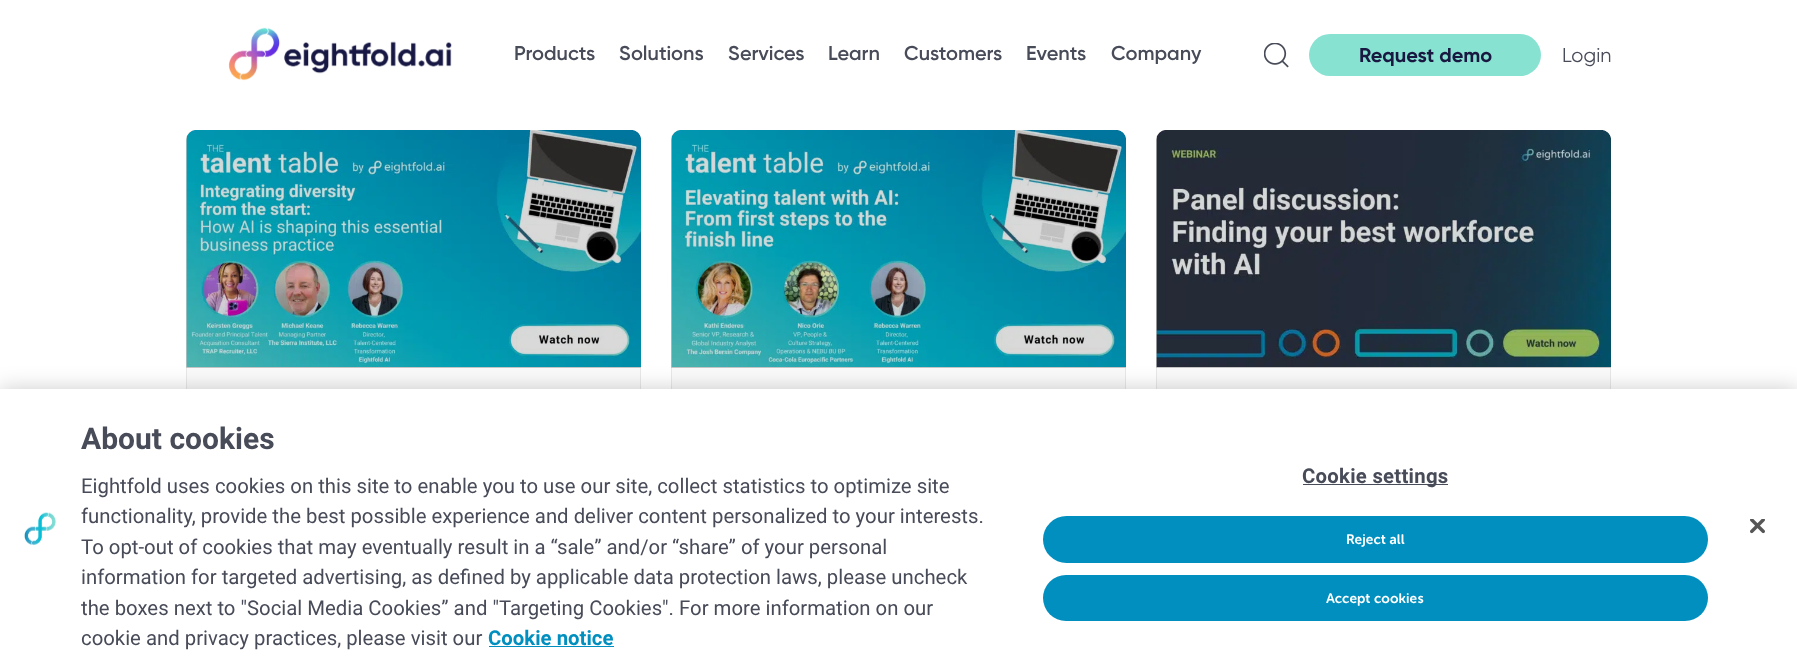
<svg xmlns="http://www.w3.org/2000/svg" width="1797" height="670">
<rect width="100%" height="100%" fill="#fff"/>
<image x="228" y="27" width="224" height="54" href="media/1.png"/>
<text x="514" y="60" style="font-family:Gilroy;font-size:20px;font-weight:600;fill:#484b58">Products</text>
<text x="619" y="60" style="font-family:Gilroy;font-size:20px;font-weight:600;fill:#484b58">Solutions</text>
<text x="728" y="60" style="font-family:Gilroy;font-size:20px;font-weight:600;fill:#484b58">Services</text>
<text x="828" y="60" style="font-family:Gilroy;font-size:20px;font-weight:600;fill:#484b58">Learn</text>
<text x="904" y="60" style="font-family:Gilroy;font-size:20px;font-weight:600;fill:#484b58">Customers</text>
<text x="1026" y="60" style="font-family:Gilroy;font-size:20px;font-weight:600;fill:#484b58">Events</text>
<text x="1111" y="60" style="font-family:Gilroy;font-size:20px;font-weight:600;fill:#484b58">Company</text>
<image x="1264" y="43" width="25" height="25" href="media/2.png"/>
<rect x="1309" y="34" width="232" height="42" rx="21" fill="#88e2d2"/>
<text x="1359" y="62" style="font-family:Gilroy;font-size:20px;font-weight:bold;fill:#191841">Request demo</text>
<text x="1562" y="62" style="font-family:Gilroy;font-size:20px;fill:#484b58">Login</text>
<rect x="186" y="130" width="455" height="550" rx="10" fill="#fafafa"/>
<path d="M196 130h435c5.5 0 10 4.5 10 10v228h-455v-228c0-5.5 4.5-10 10-10z" fill="#c5c5c5"/>
<image x="186" y="130" width="455" height="237" href="media/3.png"/>
<rect x="640" y="368" width="1" height="21" fill="#e8e8e8"/>
<rect x="186" y="368" width="1" height="21" fill="#e8e8e8"/>
<rect x="671" y="130" width="455" height="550" rx="10" fill="#fafafa"/>
<path d="M681 130h435c5.5 0 10 4.5 10 10v228h-455v-228c0-5.5 4.5-10 10-10z" fill="#c5c5c5"/>
<image x="671" y="130" width="455" height="237" href="media/4.png"/>
<rect x="1125" y="368" width="1" height="21" fill="#e8e8e8"/>
<rect x="671" y="368" width="1" height="21" fill="#e8e8e8"/>
<rect x="1156" y="130" width="455" height="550" rx="10" fill="#fafafa"/>
<path d="M1166 130h435c5.5 0 10 4.5 10 10v228h-455v-228c0-5.5 4.5-10 10-10z" fill="#c5c5c5"/>
<image x="1156" y="130" width="455" height="237" href="media/5.png"/>
<rect x="1610" y="368" width="1" height="21" fill="#e8e8e8"/>
<rect x="1156" y="368" width="1" height="21" fill="#e8e8e8"/>
<rect y="389" width="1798" height="281" fill="#00000033" filter="blur(11px)"/>
<rect y="389" width="1797" height="281" fill="#fff"/>
<image x="24" y="512" width="32" height="33" href="media/6.png"/>
<text x="81" y="449" style="font-family:Roboto;font-size:30px;font-weight:bold;fill:#484b58">About cookies</text>
<text x="81" y="493" style="font-family:Roboto;font-size:20.35px;fill:#484b58">Eightfold uses cookies on this site to enable you to use our site, collect statistics to optimize site</text>
<text x="81" y="523" style="font-family:Roboto;font-size:20.35px;fill:#484b58">functionality, provide the best possible experience and deliver content personalized to your interests.</text>
<text x="81" y="554" style="font-family:Roboto;font-size:20.35px;fill:#484b58">To opt-out of cookies that may eventually result in a “sale” and/or “share” of your personal</text>
<text x="81" y="584" style="font-family:Roboto;font-size:20.35px;fill:#484b58">information for targeted advertising, as defined by applicable data protection laws, please uncheck</text>
<text x="81" y="615" style="font-family:Roboto;font-size:20.35px;fill:#484b58">the boxes next to "Social Media Cookies” and "Targeting Cookies". For more information on our</text>
<text x="81" y="645" style="font-family:Roboto;font-size:20.35px;fill:#484b58">cookie and privacy practices, please visit our</text>
<text x="488" y="645" style="font-family:Roboto;font-size:20.35px;font-weight:bold;fill:#008fbf">Cookie notice</text>
<rect x="489" y="646" width="125" height="1" fill="#008fbf"/>
<rect x="1303" y="484" width="145" height="1" fill="#484b58"/>
<text x="1302" y="483" style="font-family:Roboto;font-size:20.35px;font-weight:bold;letter-spacing:0.25px;fill:#484b58">Cookie settings</text>
<rect x="1043" y="516" width="665" height="47" rx="23.5" fill="#008fbf"/>
<text x="1346" y="544" style="font-family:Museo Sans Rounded;font-size:13.75px;font-weight:bold;letter-spacing:0.1px;fill:#fff">Reject all</text>
<rect x="1043" y="575" width="665" height="46" rx="23" fill="#008fbf"/>
<text x="1326" y="603" style="font-family:Museo Sans Rounded;font-size:13.75px;font-weight:bold;letter-spacing:0.1px;fill:#fff">Accept cookies</text>
<image x="1750" y="519" width="15" height="15" href="media/7.png"/>
</svg>
